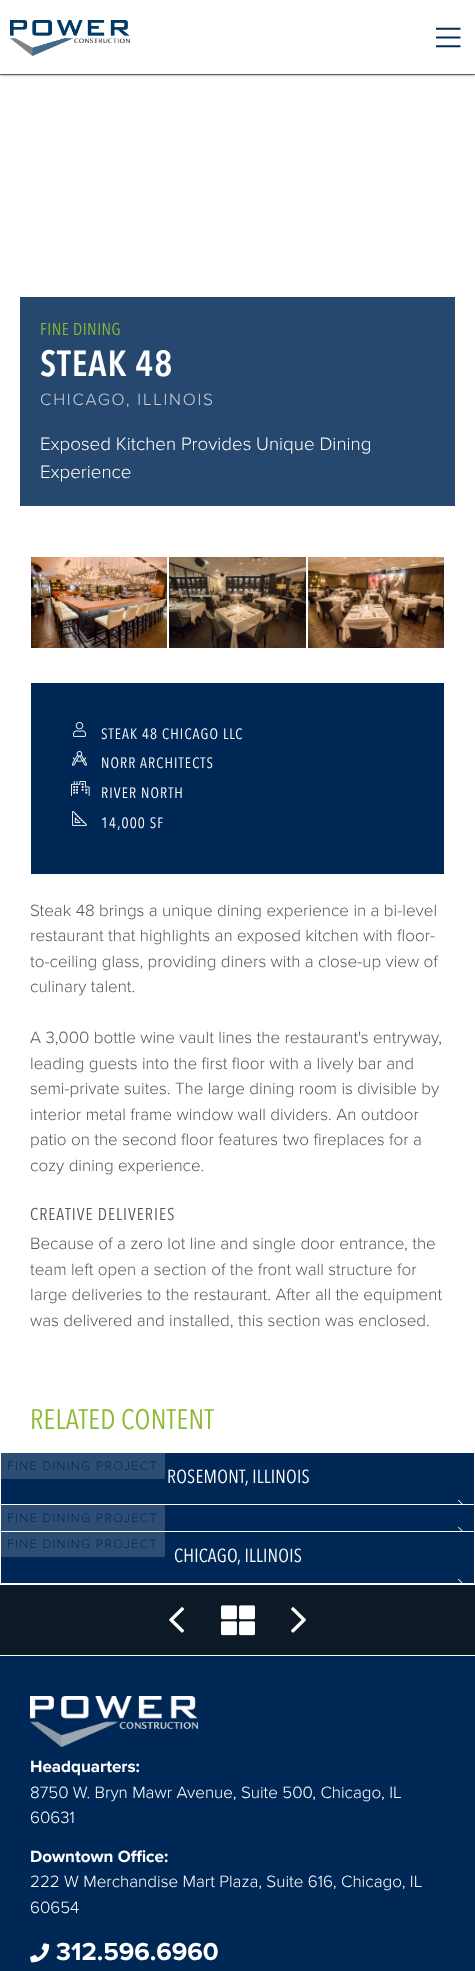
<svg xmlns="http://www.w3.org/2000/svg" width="475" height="1971">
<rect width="100%" height="100%" fill="#002856"/>
<rect y="75" width="475" height="1510" fill="#fff"/>
<rect y="74" width="475" height="1" fill="#818283"/>
<rect y="1" width="475" height="74" fill="#03111e80" filter="blur(1.5px)"/>
<rect width="475" height="74" fill="#fff"/>
<image x="10" y="20" width="120" height="36" href="media/1.png"/>
<image x="436" y="27" width="25" height="21" href="media/2.png"/>
<rect x="20" y="297" width="435" height="209" fill="#26486f"/>
<text x="40" y="335" style="font-family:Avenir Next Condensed;font-size:17px;letter-spacing:0.5px;fill:#8db931">FINE DINING</text>
<text x="40" y="376" style="font-family:Avenir Next Condensed;font-size:36px;font-weight:600;letter-spacing:1px;fill:#fff">STEAK 48</text>
<text x="40" y="405" style="font-family:Proxima Nova;font-size:17px;font-weight:300;letter-spacing:1.75px;fill:#c9d1db">CHICAGO, ILLINOIS</text>
<text x="40" y="450" style="font-family:Proxima Nova;font-size:18.75px;font-weight:300;fill:#fff">Exposed Kitchen Provides Unique Dining</text>
<text x="40" y="478" style="font-family:Proxima Nova;font-size:18.75px;font-weight:300;fill:#fff">Experience</text>
<image x="31" y="557" width="136" height="91" href="media/3.png"/>
<image x="169" y="557" width="137" height="91" href="media/4.png"/>
<image x="308" y="557" width="136" height="91" href="media/5.png"/>
<rect x="31" y="683" width="413" height="191" fill="#002856"/>
<image x="73" y="722" width="13" height="15" href="media/6.png"/>
<text x="101" y="739" style="font-family:Avenir Next Condensed;font-size:14.9px;letter-spacing:1.1px;fill:#fff">STEAK 48 CHICAGO LLC</text>
<image x="72" y="751" width="15" height="15" href="media/7.png"/>
<text x="101" y="768" style="font-family:Avenir Next Condensed;font-size:14.9px;letter-spacing:1.1px;fill:#fff">NORR ARCHITECTS</text>
<image x="71" y="781" width="19" height="15" href="media/8.png"/>
<text x="101" y="798" style="font-family:Avenir Next Condensed;font-size:14.9px;letter-spacing:1.1px;fill:#fff">RIVER NORTH</text>
<image x="72" y="811" width="15" height="15" href="media/9.png"/>
<text x="101" y="828" style="font-family:Avenir Next Condensed;font-size:14.9px;letter-spacing:1.1px;fill:#fff">14,000 SF</text>
<text x="30" y="916" style="font-family:Proxima Nova;font-size:17px;font-weight:300;fill:#54575a">Steak 48 brings a unique dining experience in a bi-level</text>
<text x="30" y="941" style="font-family:Proxima Nova;font-size:17px;font-weight:300;fill:#54575a">restaurant that highlights an exposed kitchen with floor-</text>
<text x="30" y="967" style="font-family:Proxima Nova;font-size:17px;font-weight:300;fill:#54575a">to-ceiling glass, providing diners with a close-up view of</text>
<text x="30" y="992" style="font-family:Proxima Nova;font-size:17px;font-weight:300;fill:#54575a">culinary talent.</text>
<text x="30" y="1043" style="font-family:Proxima Nova;font-size:17px;font-weight:300;fill:#54575a">A 3,000 bottle wine vault lines the restaurant's entryway,</text>
<text x="30" y="1069" style="font-family:Proxima Nova;font-size:17px;font-weight:300;fill:#54575a">leading guests into the first floor with a lively bar and</text>
<text x="30" y="1094" style="font-family:Proxima Nova;font-size:17px;font-weight:300;fill:#54575a">semi-private suites. The large dining room is divisible by</text>
<text x="30" y="1120" style="font-family:Proxima Nova;font-size:17px;font-weight:300;fill:#54575a">interior metal frame window wall dividers. An outdoor</text>
<text x="30" y="1145" style="font-family:Proxima Nova;font-size:17px;font-weight:300;fill:#54575a">patio on the second floor features two fireplaces for a</text>
<text x="30" y="1171" style="font-family:Proxima Nova;font-size:17px;font-weight:300;fill:#54575a">cozy dining experience.</text>
<text x="30" y="1220" style="font-family:Avenir Next Condensed;font-size:17px;letter-spacing:1px;fill:#54575a">CREATIVE DELIVERIES</text>
<text x="30" y="1249" style="font-family:Proxima Nova;font-size:17px;font-weight:300;fill:#54575a">Because of a zero lot line and single door entrance, the</text>
<text x="30" y="1275" style="font-family:Proxima Nova;font-size:17px;font-weight:300;fill:#54575a">team left open a section of the front wall structure for</text>
<text x="30" y="1300" style="font-family:Proxima Nova;font-size:17px;font-weight:300;fill:#54575a">large deliveries to the restaurant. After all the equipment</text>
<text x="30" y="1326" style="font-family:Proxima Nova;font-size:17px;font-weight:300;fill:#54575a">was delivered and installed, this section was enclosed.</text>
<text x="30" y="1429" style="font-family:Avenir Next Condensed;font-size:28px;letter-spacing:0.25px;fill:#8db931">RELATED CONTENT</text>
<rect x="1" y="1453" width="473" height="51" fill="#002856"/>
<rect x="1" y="1453" width="164" height="26" fill="#2d4e74"/>
<text x="7" y="1470" style="font-family:Proxima Nova;font-size:12.75px;font-weight:300;letter-spacing:1.25px;fill:#002856">FINE DINING PROJECT</text>
<text x="167" y="1483" style="font-family:Avenir Next Condensed;font-size:18.75px;letter-spacing:0.25px;fill:#fff">ROSEMONT, ILLINOIS</text>
<image x="458" y="1499" width="5" height="5" href="media/10.png"/>
<rect x="1" y="1505" width="164" height="26" fill="#2d4e74"/>
<text x="7" y="1522" style="font-family:Proxima Nova;font-size:12.75px;font-weight:300;letter-spacing:1.25px;fill:#002856">FINE DINING PROJECT</text>
<rect x="165" y="1505" width="309" height="26" fill="#002856"/>
<image x="458" y="1526" width="5" height="5" href="media/10.png"/>
<rect x="1" y="1532" width="473" height="51" fill="#002856"/>
<rect x="1" y="1532" width="164" height="25" fill="#2d4e74"/>
<text x="7" y="1548" style="font-family:Proxima Nova;font-size:12.75px;font-weight:300;letter-spacing:1.25px;fill:#002856">FINE DINING PROJECT</text>
<text x="174" y="1562" style="font-family:Avenir Next Condensed;font-size:18.75px;letter-spacing:0.25px;fill:#fff">CHICAGO, ILLINOIS</text>
<image x="458" y="1578" width="5" height="5" href="media/10.png"/>
<rect y="1585" width="475" height="70" fill="#0d1927"/>
<image x="169" y="1607" width="15" height="26" href="media/11.png"/>
<image x="221" y="1605" width="34" height="31" href="media/12.png"/>
<image x="291" y="1607" width="15" height="26" href="media/13.png"/>
<rect y="1655" width="475" height="1" fill="#fff"/>
<image x="30" y="1696" width="168" height="51" href="media/14.png"/>
<text x="30" y="1772" style="font-family:Proxima Nova;font-size:17px;font-weight:bold;fill:#fff">Headquarters:</text>
<text x="30" y="1798" style="font-family:Proxima Nova;font-size:17px;font-weight:300;fill:#fff">8750 W. Bryn Mawr Avenue, Suite 500, Chicago, IL</text>
<text x="30" y="1823" style="font-family:Proxima Nova;font-size:17px;font-weight:300;fill:#fff">60631</text>
<text x="30" y="1862" style="font-family:Proxima Nova;font-size:17px;font-weight:bold;fill:#fff">Downtown Office:</text>
<text x="30" y="1887" style="font-family:Proxima Nova;font-size:17px;font-weight:300;fill:#fff">222 W Merchandise Mart Plaza, Suite 616, Chicago, IL</text>
<text x="30" y="1913" style="font-family:Proxima Nova;font-size:17px;font-weight:300;fill:#fff">60654</text>
<image x="30" y="1943" width="20" height="20" href="media/15.png"/>
<text x="56" y="1960" style="font-family:Proxima Nova;font-size:25.5px;font-weight:bold;fill:#fff">312.596.6960</text>
</svg>
